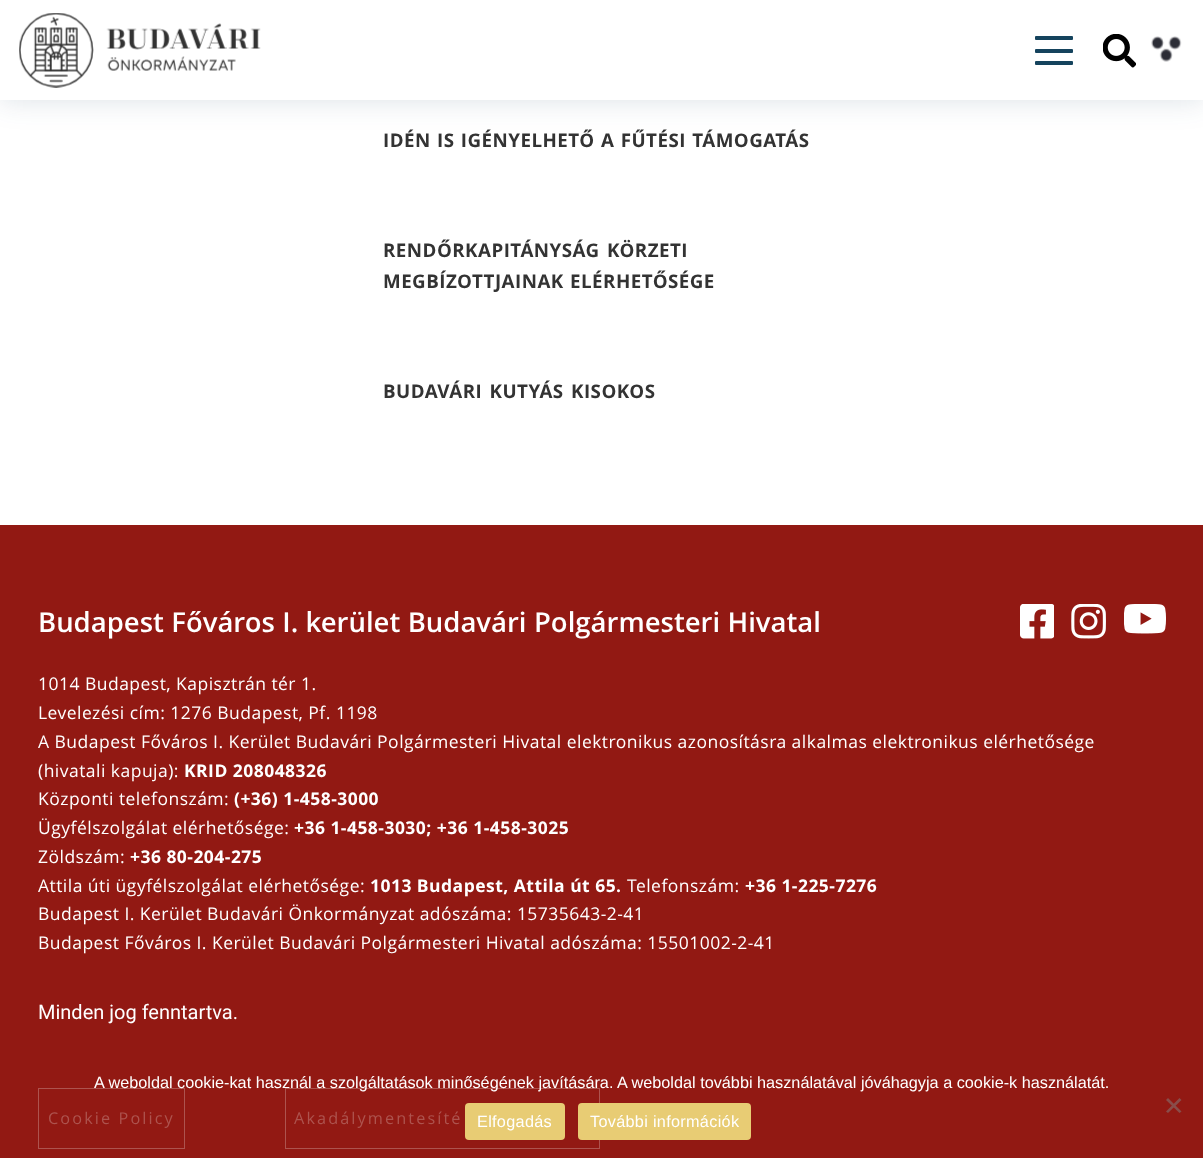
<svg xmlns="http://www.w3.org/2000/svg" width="1203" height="1158">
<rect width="100%" height="100%" fill="#fff"/>
<rect y="-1" width="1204" height="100" fill="#15435d2b" filter="blur(15px)"/>
<rect width="1203" height="100" fill="#fff"/>
<image x="19" y="13" width="242" height="75" href="media/1.png"/>
<rect x="1035" y="36" width="38" height="4" rx="1" fill="#15435d"/>
<rect x="1035" y="49" width="38" height="4" rx="1" fill="#15435d"/>
<rect x="1035" y="61" width="38" height="4" rx="1" fill="#15435d"/>
<image x="1103" y="34" width="33" height="34" href="media/2.png"/>
<image x="1151" y="36" width="31" height="26" href="media/3.png"/>
<text x="383" y="147" word-spacing="1" style="font-family:Open Sans;font-size:18.75px;font-weight:bold;letter-spacing:0.47px;fill:#333">IDÉN IS IGÉNYELHETŐ A FŰTÉSI TÁMOGATÁS</text>
<text x="383" y="257" word-spacing="2" style="font-family:Open Sans;font-size:18.75px;font-weight:bold;letter-spacing:0.47px;fill:#333">RENDŐRKAPITÁNYSÁG KÖRZETI</text>
<text x="383" y="288" word-spacing="1" style="font-family:Open Sans;font-size:18.75px;font-weight:bold;letter-spacing:0.47px;fill:#333">MEGBÍZOTTJAINAK ELÉRHETŐSÉGE</text>
<text x="383" y="398" word-spacing="2" style="font-family:Open Sans;font-size:18.75px;font-weight:bold;letter-spacing:0.47px;fill:#333">BUDAVÁRI KUTYÁS KISOKOS</text>
<rect y="525" width="1203" height="633" fill="#921913"/>
<text x="38" y="632" word-spacing="0.25" style="font-family:Open Sans;font-size:27.5px;font-weight:600;fill:#fff">Budapest Főváros I. kerület Budavári Polgármesteri Hivatal</text>
<image x="1020" y="604" width="34" height="35" href="media/4.png"/>
<image x="1071" y="604" width="35" height="35" href="media/5.png"/>
<image x="1124" y="604" width="42" height="30" href="media/6.png"/>
<text x="38" y="690" style="font-family:Open Sans;font-size:17.5px;letter-spacing:0.47px;fill:#fff">1014 Budapest, Kapisztrán tér 1.</text>
<text x="38" y="719" style="font-family:Open Sans;font-size:17.5px;letter-spacing:0.47px;fill:#fff">Levelezési cím: 1276 Budapest, Pf. 1198</text>
<text x="38" y="748" style="font-family:Open Sans;font-size:17.5px;letter-spacing:0.47px;fill:#fff">A Budapest Főváros I. Kerület Budavári Polgármesteri Hivatal elektronikus azonosításra alkalmas elektronikus elérhetősége</text>
<text x="38" y="777" style="font-family:Open Sans;font-size:17.5px;letter-spacing:0.47px;fill:#fff">(hivatali kapuja):</text>
<text x="184" y="777" style="font-family:Open Sans;font-size:17.5px;font-weight:bold;letter-spacing:0.47px;fill:#fff">KRID 208048326</text>
<text x="38" y="805" style="font-family:Open Sans;font-size:17.5px;letter-spacing:0.47px;fill:#fff">Központi telefonszám:</text>
<text x="234" y="805" style="font-family:Open Sans;font-size:17.5px;font-weight:bold;letter-spacing:0.47px;fill:#fff">(+36) 1-458-3000</text>
<text x="38" y="834" style="font-family:Open Sans;font-size:17.5px;letter-spacing:0.47px;fill:#fff">Ügyfélszolgálat elérhetősége:</text>
<text x="294" y="834" style="font-family:Open Sans;font-size:17.5px;font-weight:bold;letter-spacing:0.47px;fill:#fff">+36 1-458-3030; +36 1-458-3025</text>
<text x="38" y="863" style="font-family:Open Sans;font-size:17.5px;letter-spacing:0.47px;fill:#fff">Zöldszám:</text>
<text x="130" y="863" style="font-family:Open Sans;font-size:17.5px;font-weight:bold;letter-spacing:0.47px;fill:#fff">+36 80-204-275</text>
<text x="38" y="892" style="font-family:Open Sans;font-size:17.5px;letter-spacing:0.47px;fill:#fff">Attila úti ügyfélszolgálat elérhetősége:</text>
<text x="370" y="892" style="font-family:Open Sans;font-size:17.5px;font-weight:bold;letter-spacing:0.47px;fill:#fff">1013 Budapest, Attila út 65.</text>
<text x="627" y="892" style="font-family:Open Sans;font-size:17.5px;letter-spacing:0.47px;fill:#fff">Telefonszám:</text>
<text x="745" y="892" style="font-family:Open Sans;font-size:17.5px;font-weight:bold;letter-spacing:0.47px;fill:#fff">+36 1-225-7276</text>
<text x="38" y="920" style="font-family:Open Sans;font-size:17.5px;letter-spacing:0.47px;fill:#fff">Budapest I. Kerület Budavári Önkormányzat adószáma: 15735643-2-41</text>
<text x="38" y="949" style="font-family:Open Sans;font-size:17.5px;letter-spacing:0.47px;fill:#fff">Budapest Főváros I. Kerület Budavári Polgármesteri Hivatal adószáma: 15501002-2-41</text>
<text x="38" y="1019" style="font-family:Roboto;font-size:20px;fill:#fff">Minden jog fenntartva.</text>
<rect x="38.5" y="1088.5" width="146" height="60" fill="none" stroke="#ad534e"/>
<text x="48" y="1124" style="font-family:Open Sans;font-size:16.25px;letter-spacing:2.1px;fill:#ad534e">Cookie Policy</text>
<rect x="285.5" y="1088.5" width="314" height="60" fill="none" stroke="#ad534e"/>
<text x="294" y="1124" style="font-family:Open Sans;font-size:16.25px;letter-spacing:2.1px;fill:#ad534e">Akadálymentesíté</text>
<text x="94" y="1088" style="font-family:Liberation Sans;font-size:16.25px;fill:#fff">A weboldal cookie-kat használ a szolgáltatások minőségének javítására. A weboldal további használatával jóváhagyja a cookie-k használatát.</text>
<path d="M1179.5 1098l2 2l-13.5 13l-2-1.5z" fill="#894d4a"/>
<path d="M1166 1100l2-2l13.5 13.5l-2 1.5z" fill="#894d4a"/>
<rect x="465" y="1103" width="100" height="37" rx="4" fill="#e8cc74"/>
<text x="477" y="1127" style="font-family:Liberation Sans;font-size:16.25px;letter-spacing:0.3px;fill:#fff">Elfogadás</text>
<rect x="578" y="1103" width="173" height="37" rx="4" fill="#e8cc74"/>
<text x="590" y="1127" style="font-family:Liberation Sans;font-size:16.25px;letter-spacing:0.3px;fill:#fff">További információk</text>
</svg>
